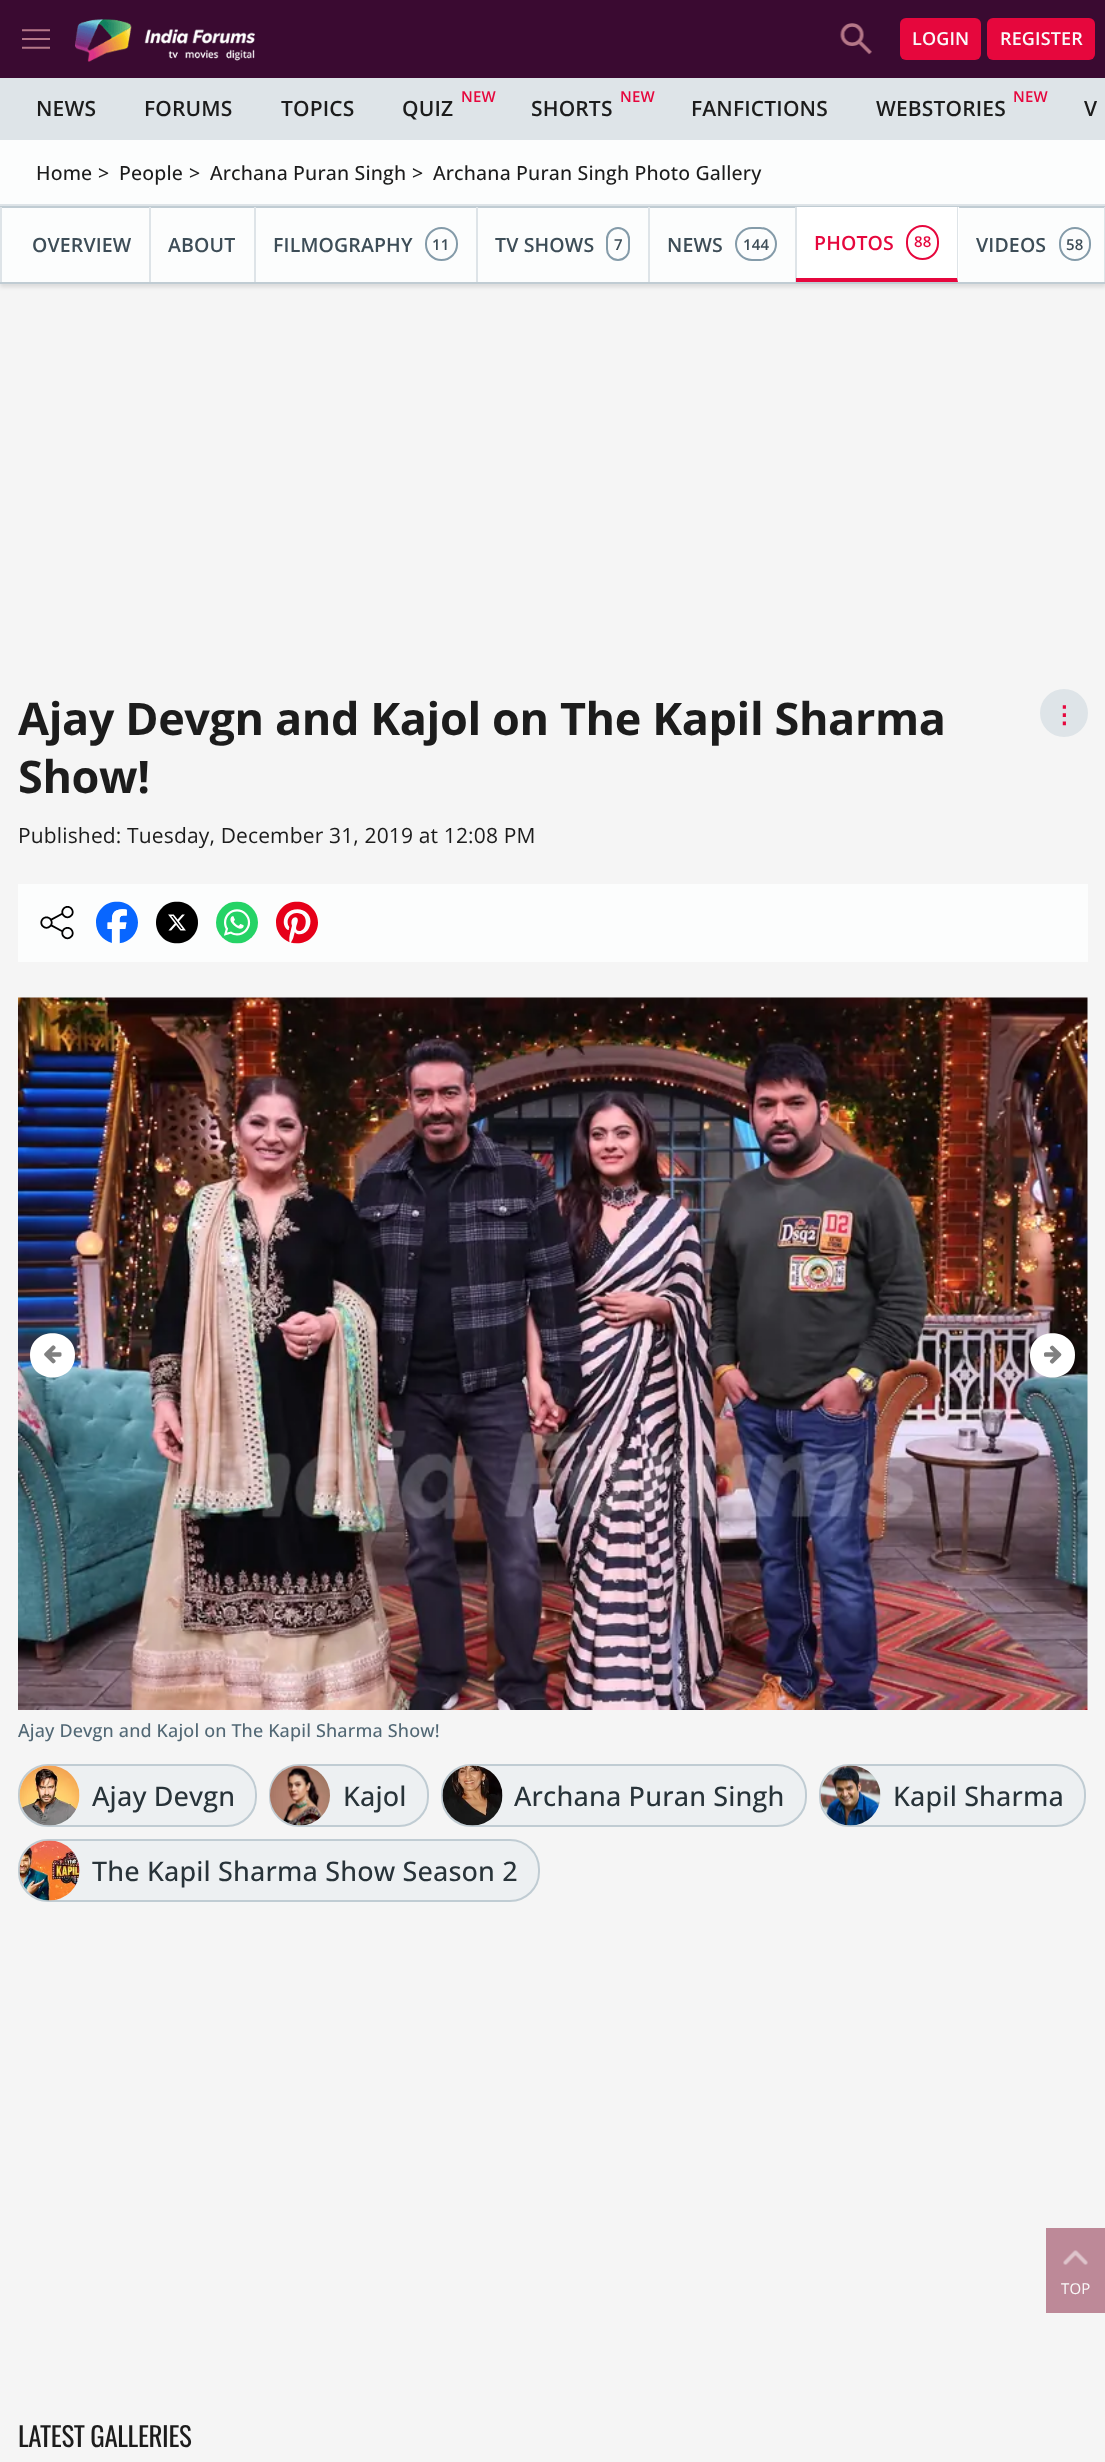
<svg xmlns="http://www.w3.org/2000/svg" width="1105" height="2462">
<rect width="100%" height="100%" fill="#f5f5f5"/>
<rect width="1105" height="78" fill="#3a0a31"/>
<image x="22" y="29" width="28" height="20" href="media/1.png"/>
<image x="75" y="19" width="180" height="43" href="media/2.png"/>
<image x="840" y="23" width="32" height="32" href="media/3.png"/>
<rect x="900" y="18" width="81" height="42" rx="6" fill="#e6073d"/>
<text x="912" y="45" style="font-family:Open Sans;font-size:18px;font-weight:600;letter-spacing:0.15px;fill:#fafafa">LOGIN</text>
<rect x="987" y="18" width="108" height="42" rx="6" fill="#e6073d"/>
<text x="1000" y="45" style="font-family:Open Sans;font-size:18px;font-weight:600;letter-spacing:0.15px;fill:#fafafa">REGISTER</text>
<rect y="78" width="1105" height="62" fill="#dee4e8"/>
<text x="36" y="116" style="font-family:Open Sans;font-size:21px;font-weight:600;letter-spacing:0.15px;fill:#1c1c1c">NEWS</text>
<text x="144" y="116" style="font-family:Open Sans;font-size:21px;font-weight:600;letter-spacing:0.15px;fill:#1c1c1c">FORUMS</text>
<text x="281" y="116" style="font-family:Open Sans;font-size:21px;font-weight:600;letter-spacing:0.15px;fill:#1c1c1c">TOPICS</text>
<text x="461" y="102" style="font-family:Open Sans;font-size:15px;font-weight:600;letter-spacing:0.15px;fill:#e6073d">NEW</text>
<text x="402" y="116" style="font-family:Open Sans;font-size:21px;font-weight:600;letter-spacing:0.15px;fill:#1c1c1c">QUIZ</text>
<text x="620" y="102" style="font-family:Open Sans;font-size:15px;font-weight:600;letter-spacing:0.15px;fill:#e6073d">NEW</text>
<text x="531" y="116" style="font-family:Open Sans;font-size:21px;font-weight:600;letter-spacing:0.15px;fill:#1c1c1c">SHORTS</text>
<text x="691" y="116" style="font-family:Open Sans;font-size:21px;font-weight:600;letter-spacing:0.15px;fill:#1c1c1c">FANFICTIONS</text>
<text x="1013" y="102" style="font-family:Open Sans;font-size:15px;font-weight:600;letter-spacing:0.15px;fill:#e6073d">NEW</text>
<text x="876" y="116" style="font-family:Open Sans;font-size:21px;font-weight:600;letter-spacing:0.15px;fill:#1c1c1c">WEBSTORIES</text>
<text x="1084" y="116" style="font-family:Open Sans;font-size:21px;font-weight:600;letter-spacing:0.15px;fill:#1c1c1c">V</text>
<rect y="140" width="1105" height="64" fill="#fcfdfd"/>
<rect y="204" width="1105" height="2" fill="#dee4e8"/>
<text x="36" y="180" style="font-family:Open Sans;font-size:19.5px;font-weight:500;letter-spacing:0.15px;fill:#1c1c1c">Home</text>
<text x="98" y="180" style="font-family:Open Sans;font-size:19.5px;font-weight:500;letter-spacing:0.15px;fill:#222">&gt;</text>
<text x="119" y="180" style="font-family:Open Sans;font-size:19.5px;font-weight:500;letter-spacing:0.15px;fill:#1c1c1c">People</text>
<text x="189" y="180" style="font-family:Open Sans;font-size:19.5px;font-weight:500;letter-spacing:0.15px;fill:#222">&gt;</text>
<text x="210" y="180" style="font-family:Open Sans;font-size:19.5px;font-weight:500;letter-spacing:0.15px;fill:#1c1c1c">Archana Puran Singh</text>
<text x="412" y="180" style="font-family:Open Sans;font-size:19.5px;font-weight:500;letter-spacing:0.15px;fill:#222">&gt;</text>
<text x="433" y="180" style="font-family:Open Sans;font-size:19.5px;font-weight:500;letter-spacing:0.15px;fill:#1c1c1c">Archana Puran Singh Photo Gallery</text>
<rect y="209" width="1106" height="78" fill="#0000001c" filter="blur(2px)"/>
<rect x="2" y="208" width="1102" height="74" fill="#fcfdfd"/>
<rect y="206" width="1105" height="2" fill="#c0ccd3"/>
<rect y="282" width="1105" height="2" fill="#c0ccd3"/>
<rect x="1104" y="207" width="1" height="75" fill="#dee4e8"/>
<rect y="207" width="2" height="75" fill="#dee4e8"/>
<rect x="149" y="207" width="2" height="75" fill="#dee4e8"/>
<text x="32" y="252" style="font-family:Open Sans;font-size:19.5px;font-weight:600;letter-spacing:0.15px;fill:#3d4d57">OVERVIEW</text>
<rect x="254" y="207" width="2" height="75" fill="#dee4e8"/>
<text x="168" y="252" style="font-family:Open Sans;font-size:19.5px;font-weight:600;letter-spacing:0.15px;fill:#3d4d57">ABOUT</text>
<rect x="476" y="207" width="2" height="75" fill="#dee4e8"/>
<text x="273" y="252" style="font-family:Open Sans;font-size:19.5px;font-weight:600;letter-spacing:0.15px;fill:#3d4d57">FILMOGRAPHY</text>
<rect x="426" y="228" width="31" height="32" rx="15.5" fill="none" stroke="#849ba9" stroke-width="2"/>
<text x="432" y="250" style="font-family:Open Sans;font-size:15px;font-weight:600;letter-spacing:0.15px;fill:#3d4d57">11</text>
<rect x="648" y="207" width="2" height="75" fill="#dee4e8"/>
<text x="495" y="252" style="font-family:Open Sans;font-size:19.5px;font-weight:600;letter-spacing:0.15px;fill:#3d4d57">TV SHOWS</text>
<rect x="607" y="228" width="22" height="32" rx="11" fill="none" stroke="#849ba9" stroke-width="2"/>
<text x="614" y="250" style="font-family:Open Sans;font-size:15px;font-weight:600;letter-spacing:0.15px;fill:#3d4d57">7</text>
<rect x="795" y="207" width="2" height="75" fill="#dee4e8"/>
<text x="667" y="252" style="font-family:Open Sans;font-size:19.5px;font-weight:600;letter-spacing:0.15px;fill:#3d4d57">NEWS</text>
<rect x="736" y="228" width="40" height="32" rx="16" fill="none" stroke="#849ba9" stroke-width="2"/>
<text x="743" y="250" style="font-family:Open Sans;font-size:15px;font-weight:600;letter-spacing:0.15px;fill:#3d4d57">144</text>
<rect x="797" y="207" width="162" height="75" fill="#fff"/>
<path d="M958 207v75l-1-4v-71z" fill="#dee4e8"/>
<path d="M958 282h-162v-4h161z" fill="#e6073d"/>
<text x="814" y="250" style="font-family:Open Sans;font-size:19.5px;font-weight:600;letter-spacing:0.15px;fill:#e6073d">PHOTOS</text>
<rect x="907" y="226" width="31" height="33" rx="15.5" fill="none" stroke="#e6073d" stroke-width="2"/>
<text x="914" y="247" style="font-family:Open Sans;font-size:15px;font-weight:600;letter-spacing:0.15px;fill:#e6073d">88</text>
<text x="976" y="252" style="font-family:Open Sans;font-size:19.5px;font-weight:600;letter-spacing:0.15px;fill:#3d4d57">VIDEOS</text>
<rect x="1060" y="228" width="30" height="32" rx="15" fill="none" stroke="#849ba9" stroke-width="2"/>
<text x="1066" y="250" style="font-family:Open Sans;font-size:15px;font-weight:600;letter-spacing:0.15px;fill:#3d4d57">58</text>
<text x="18" y="735" style="font-family:Open Sans;font-size:45px;font-weight:bold;letter-spacing:-0.4px;fill:#1c1c1c">Ajay Devgn and Kajol on The Kapil Sharma</text>
<text x="18" y="793" style="font-family:Open Sans;font-size:45px;font-weight:bold;letter-spacing:-0.4px;fill:#1c1c1c">Show!</text>
<circle cx="1064" cy="713" r="24" fill="#dee4e8"/>
<text x="1052" y="723" style="font-family:DejaVu Sans;font-size:24px;font-weight:bold;letter-spacing:0.15px;fill:#e6073d">⋮</text>
<text x="18" y="843" style="font-family:Open Sans;font-size:21px;letter-spacing:0.15px;fill:#1c1c1c">Published: Tuesday, December 31, 2019 at 12:08 PM</text>
<rect x="18" y="884" width="1070" height="78" fill="#fcfdfd"/>
<image x="40" y="906" width="34" height="34" href="media/4.png"/>
<image x="96" y="901" width="42" height="43" href="media/5.png"/>
<image x="156" y="901" width="42" height="43" href="media/6.png"/>
<image x="216" y="901" width="42" height="43" href="media/7.png"/>
<image x="276" y="901" width="42" height="43" href="media/8.png"/>
<image x="18" y="997" width="1070" height="713" href="media/11.png"/>
<path d="M75 1355c0 30-45 30-45 0c0-29 45-29 45 0z" fill="#fff"/>
<image x="44" y="1345" width="18" height="19" href="media/9.png"/>
<path d="M1030 1355c0-29 45-29 45 0c0 30-45 30-45 0z" fill="#fff"/>
<image x="1044" y="1345" width="18" height="19" href="media/10.png"/>
<text x="18" y="1737" style="font-family:Open Sans;font-size:18px;font-weight:500;letter-spacing:0.15px;fill:#526875">Ajay Devgn and Kajol on The Kapil Sharma Show!</text>
<rect x="19" y="1765" width="237" height="61" rx="29" fill="#edf0f2" stroke="#c0ccd3" stroke-width="2"/>
<image x="19" y="1765" width="61" height="61" href="media/12.png"/>
<text x="92" y="1806" style="font-family:Open Sans;font-size:27px;font-weight:500;letter-spacing:0.15px;fill:#283339">Ajay Devgn</text>
<rect x="270" y="1765" width="158" height="61" rx="29" fill="#edf0f2" stroke="#c0ccd3" stroke-width="2"/>
<image x="270" y="1765" width="60" height="61" href="media/13.png"/>
<text x="343" y="1806" style="font-family:Open Sans;font-size:27px;font-weight:500;letter-spacing:0.15px;fill:#283339">Kajol</text>
<rect x="442" y="1765" width="364" height="61" rx="29" fill="#edf0f2" stroke="#c0ccd3" stroke-width="2"/>
<image x="442" y="1765" width="61" height="61" href="media/14.png"/>
<text x="514" y="1806" style="font-family:Open Sans;font-size:27px;font-weight:500;letter-spacing:0.15px;fill:#283339">Archana Puran Singh</text>
<rect x="820" y="1765" width="265" height="61" rx="29" fill="#edf0f2" stroke="#c0ccd3" stroke-width="2"/>
<image x="820" y="1765" width="61" height="61" href="media/15.png"/>
<text x="893" y="1806" style="font-family:Open Sans;font-size:27px;font-weight:500;letter-spacing:0.15px;fill:#283339">Kapil Sharma</text>
<rect x="19" y="1840" width="520" height="61" rx="29" fill="#edf0f2" stroke="#c0ccd3" stroke-width="2"/>
<image x="19" y="1840" width="61" height="61" href="media/16.png"/>
<text x="92" y="1881" style="font-family:Open Sans;font-size:27px;font-weight:500;letter-spacing:0.15px;fill:#283339">The Kapil Sharma Show Season 2</text>
<text x="18" y="2447" style="font-family:Oswald;font-size:27px;letter-spacing:-0.4px;fill:#1c1c1c">LATEST GALLERIES</text>
<rect x="1046" y="2228" width="59" height="85" fill="#bd8998"/>
<image x="1063" y="2250" width="25" height="15" href="media/17.png"/>
<text x="1061" y="2294" style="font-family:Open Sans;font-size:15px;letter-spacing:0.15px;fill:#fafafa">TOP</text>
</svg>
